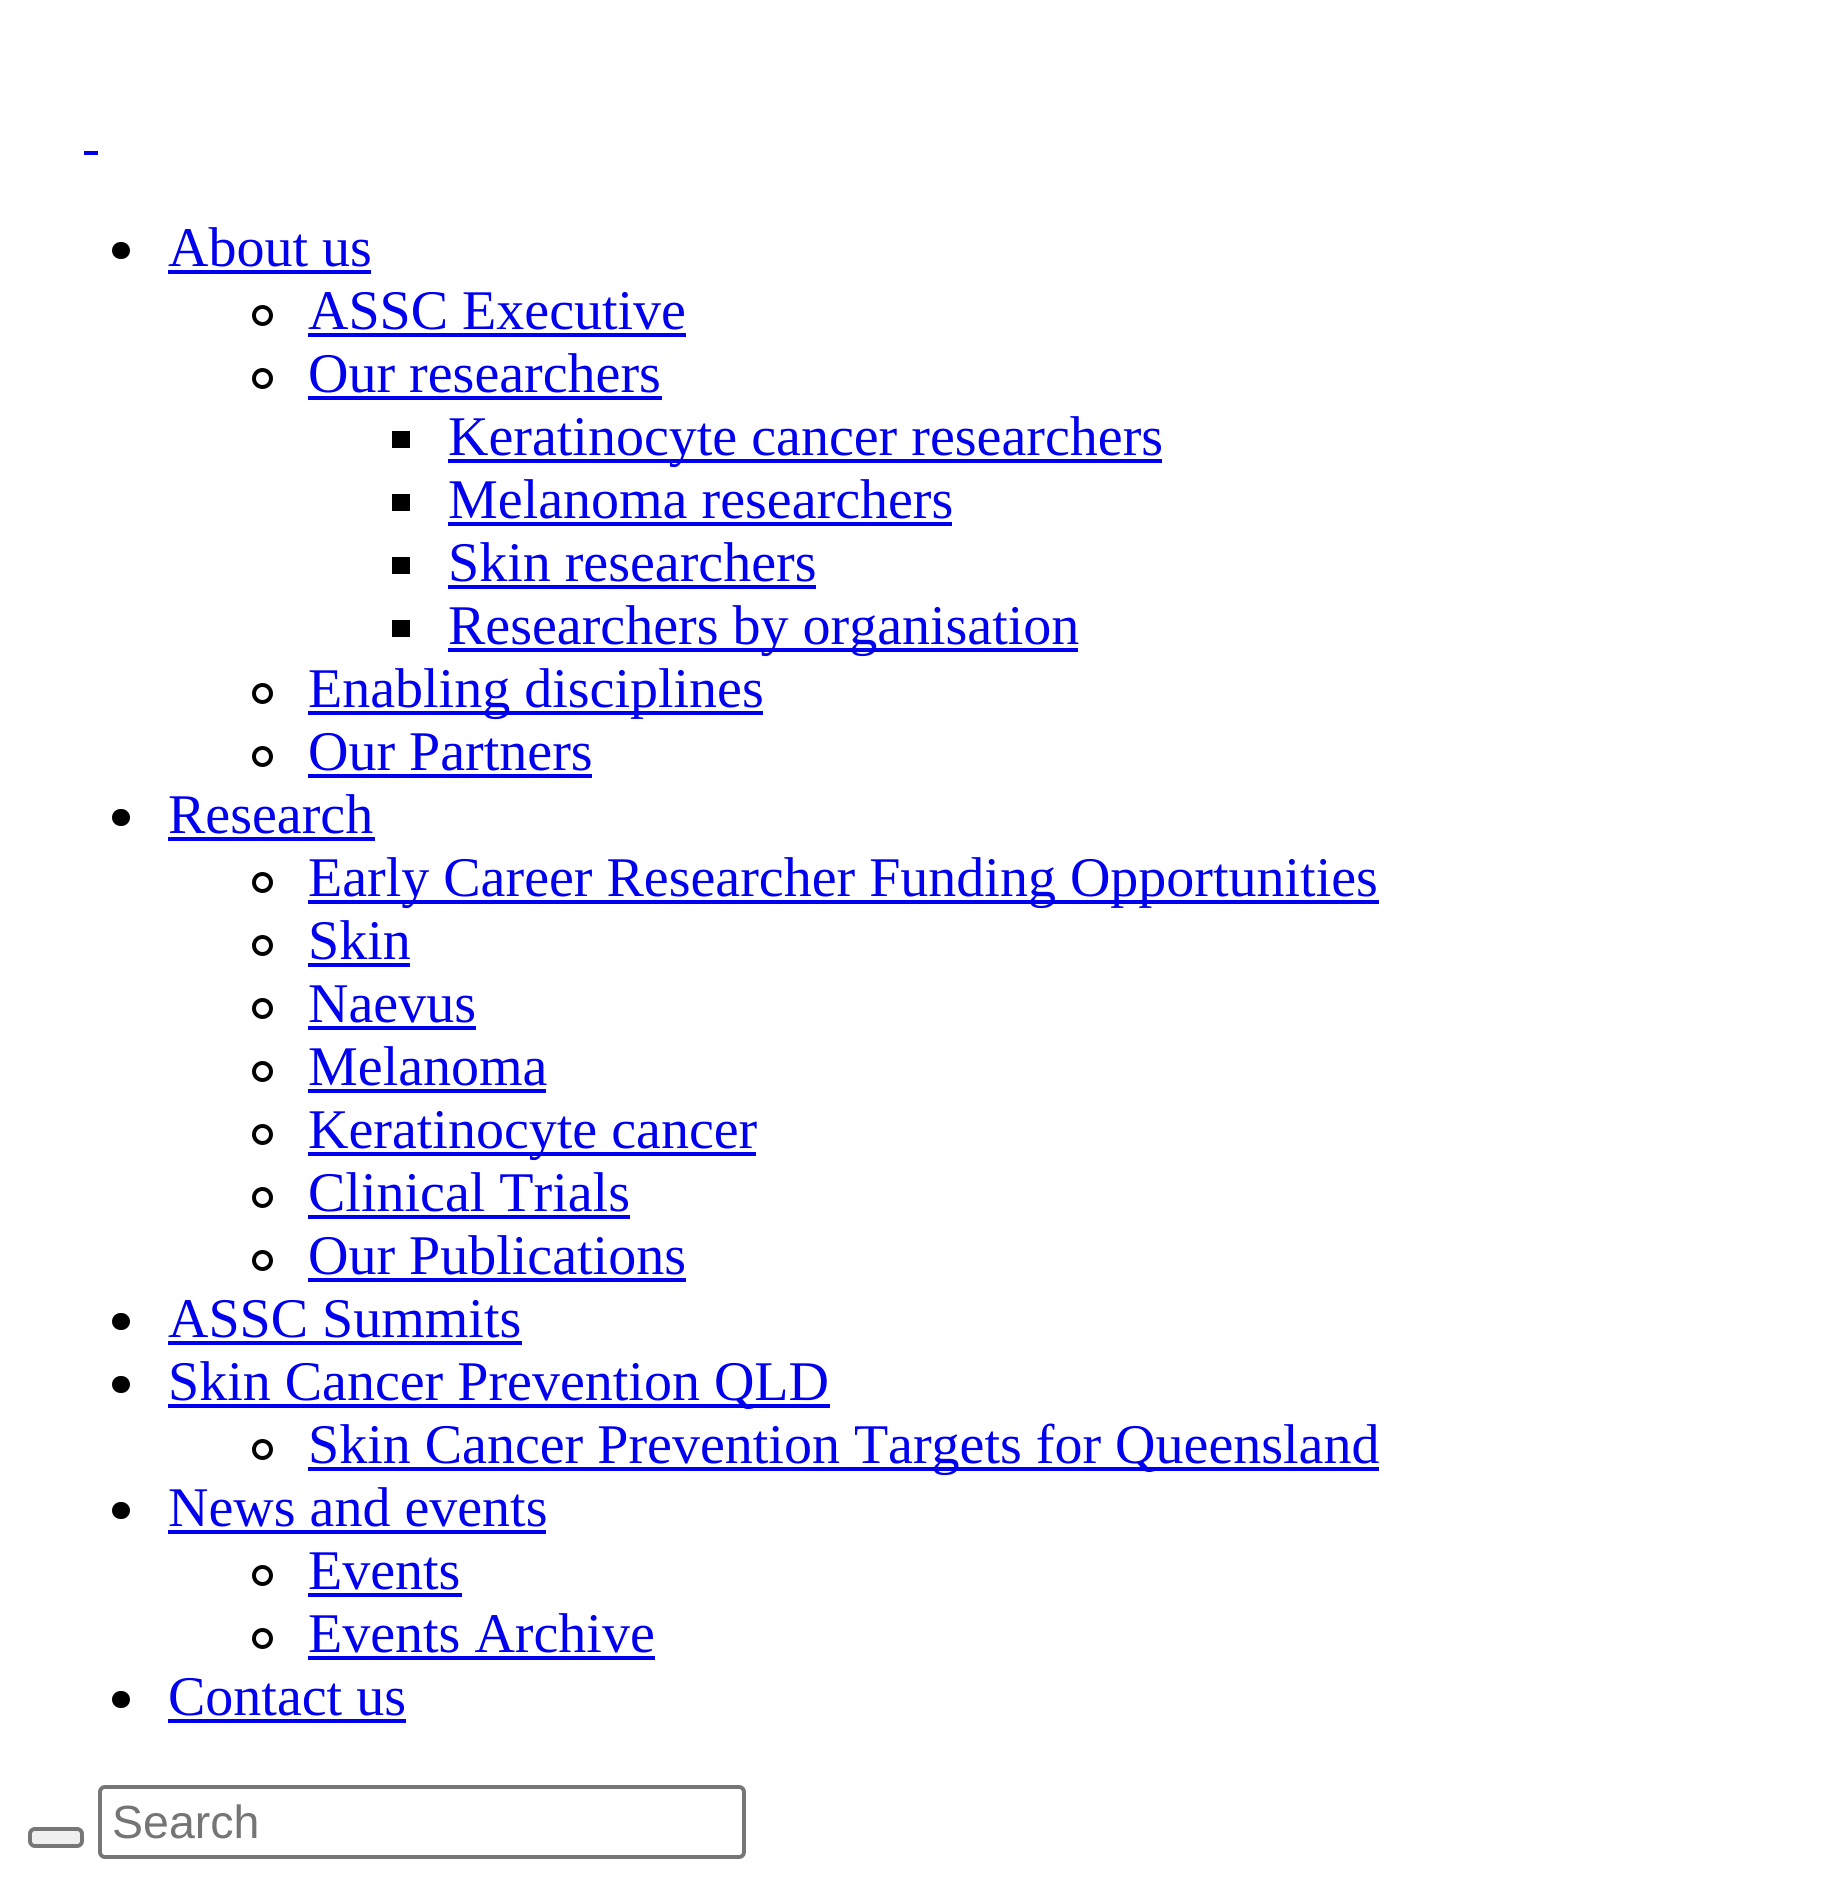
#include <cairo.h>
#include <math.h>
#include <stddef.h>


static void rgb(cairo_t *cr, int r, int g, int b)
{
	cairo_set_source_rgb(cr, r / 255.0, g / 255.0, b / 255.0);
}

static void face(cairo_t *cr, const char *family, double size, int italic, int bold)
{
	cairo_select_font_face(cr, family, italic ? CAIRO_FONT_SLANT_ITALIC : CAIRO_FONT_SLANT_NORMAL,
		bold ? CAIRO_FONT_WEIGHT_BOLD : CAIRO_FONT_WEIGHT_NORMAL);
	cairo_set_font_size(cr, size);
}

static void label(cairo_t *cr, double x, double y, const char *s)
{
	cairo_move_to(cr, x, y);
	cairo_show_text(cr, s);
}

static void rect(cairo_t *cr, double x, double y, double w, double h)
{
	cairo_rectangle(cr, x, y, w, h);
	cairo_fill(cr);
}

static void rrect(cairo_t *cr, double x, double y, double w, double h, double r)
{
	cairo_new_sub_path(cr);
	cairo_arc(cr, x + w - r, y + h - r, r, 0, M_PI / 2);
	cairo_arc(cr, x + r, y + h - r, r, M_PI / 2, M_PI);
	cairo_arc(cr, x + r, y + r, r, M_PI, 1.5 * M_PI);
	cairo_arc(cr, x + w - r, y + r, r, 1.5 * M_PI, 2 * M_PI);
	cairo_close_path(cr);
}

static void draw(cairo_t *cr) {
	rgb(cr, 255, 255, 255);
	cairo_paint(cr);
	rgb(cr, 0, 0, 238);
	rect(cr, 84, 151, 14, 4);
	rgb(cr, 0, 0, 0);
	rrect(cr, 112, 242, 18, 17, 8.5);
	cairo_fill(cr);
	face(cr, "Liberation Serif", 56, 0, 0);
	rgb(cr, 0, 0, 238);
	label(cr, 168, 266, "About us");
	rect(cr, 168, 270, 203, 4);
	cairo_new_path(cr);
	cairo_arc(cr, 262.5, 315.5, 8.5, 0, 2 * M_PI);
	rgb(cr, 0, 0, 0);
	cairo_set_line_width(cr, 4);
	cairo_stroke(cr);
	rgb(cr, 0, 0, 238);
	label(cr, 308, 329, "ASSC Executive");
	rect(cr, 308, 333, 378, 4);
	cairo_new_path(cr);
	cairo_arc(cr, 262.5, 378.5, 8.5, 0, 2 * M_PI);
	rgb(cr, 0, 0, 0);
	cairo_stroke(cr);
	rgb(cr, 0, 0, 238);
	label(cr, 308, 392, "Our researchers");
	rect(cr, 308, 396, 354, 4);
	rgb(cr, 0, 0, 0);
	rect(cr, 392, 431, 18, 17);
	rgb(cr, 0, 0, 238);
	rect(cr, 448, 459, 714, 4);
	label(cr, 448, 455, "Keratinocyte cancer researchers");
	rgb(cr, 0, 0, 0);
	rect(cr, 392, 494, 18, 17);
	rgb(cr, 0, 0, 238);
	label(cr, 448, 518, "Melanoma researchers");
	rect(cr, 448, 522, 504, 4);
	rgb(cr, 0, 0, 0);
	rect(cr, 392, 557, 18, 17);
	rgb(cr, 0, 0, 238);
	label(cr, 448, 581, "Skin researchers");
	rect(cr, 448, 585, 368, 4);
	rgb(cr, 0, 0, 0);
	rect(cr, 392, 620, 18, 17);
	rgb(cr, 0, 0, 238);
	rect(cr, 448, 648, 630, 4);
	label(cr, 448, 644, "Researchers by organisation");
	cairo_new_path(cr);
	cairo_arc(cr, 262.5, 693.5, 8.5, 0, 2 * M_PI);
	rgb(cr, 0, 0, 0);
	cairo_stroke(cr);
	rgb(cr, 0, 0, 238);
	rect(cr, 308, 711, 455, 4);
	label(cr, 308, 707, "Enabling disciplines");
	cairo_new_path(cr);
	cairo_arc(cr, 262.5, 756.5, 8.5, 0, 2 * M_PI);
	rgb(cr, 0, 0, 0);
	cairo_stroke(cr);
	rgb(cr, 0, 0, 238);
	label(cr, 308, 770, "Our Partners");
	rect(cr, 308, 774, 284, 4);
	rgb(cr, 0, 0, 0);
	rrect(cr, 112, 809, 18, 17, 8.5);
	cairo_fill(cr);
	rgb(cr, 0, 0, 238);
	label(cr, 168, 833, "Research");
	rect(cr, 168, 837, 207, 4);
	cairo_new_path(cr);
	cairo_arc(cr, 262.5, 882.5, 8.5, 0, 2 * M_PI);
	rgb(cr, 0, 0, 0);
	cairo_stroke(cr);
	rgb(cr, 0, 0, 238);
	rect(cr, 308, 900, 1071, 4);
	label(cr, 308, 896, "Early Career Researcher Funding Opportunities");
	cairo_new_path(cr);
	cairo_arc(cr, 262.5, 945.5, 8.5, 0, 2 * M_PI);
	rgb(cr, 0, 0, 0);
	cairo_stroke(cr);
	rgb(cr, 0, 0, 238);
	label(cr, 308, 959, "Skin");
	rect(cr, 308, 963, 102, 4);
	cairo_new_path(cr);
	cairo_arc(cr, 262.5, 1008.5, 8.5, 0, 2 * M_PI);
	rgb(cr, 0, 0, 0);
	cairo_stroke(cr);
	rgb(cr, 0, 0, 238);
	label(cr, 308, 1022, "Naevus");
	rect(cr, 308, 1026, 168, 4);
	cairo_new_path(cr);
	cairo_arc(cr, 262.5, 1071.5, 8.5, 0, 2 * M_PI);
	rgb(cr, 0, 0, 0);
	cairo_stroke(cr);
	rgb(cr, 0, 0, 238);
	label(cr, 308, 1085, "Melanoma");
	rect(cr, 308, 1089, 238, 4);
	cairo_new_path(cr);
	cairo_arc(cr, 262.5, 1134.5, 8.5, 0, 2 * M_PI);
	rgb(cr, 0, 0, 0);
	cairo_stroke(cr);
	rgb(cr, 0, 0, 238);
	rect(cr, 308, 1152, 448, 4);
	label(cr, 308, 1148, "Keratinocyte cancer");
	cairo_new_path(cr);
	cairo_arc(cr, 262.5, 1197.5, 8.5, 0, 2 * M_PI);
	rgb(cr, 0, 0, 0);
	cairo_stroke(cr);
	rgb(cr, 0, 0, 238);
	label(cr, 308, 1211, "Clinical Trials");
	rect(cr, 308, 1215, 322, 4);
	cairo_new_path(cr);
	cairo_arc(cr, 262.5, 1260.5, 8.5, 0, 2 * M_PI);
	rgb(cr, 0, 0, 0);
	cairo_stroke(cr);
	rgb(cr, 0, 0, 238);
	label(cr, 308, 1274, "Our Publications");
	rect(cr, 308, 1278, 378, 4);
	rgb(cr, 0, 0, 0);
	rrect(cr, 112, 1313, 18, 17, 8.5);
	cairo_fill(cr);
	rgb(cr, 0, 0, 238);
	label(cr, 168, 1337, "ASSC Summits");
	rect(cr, 168, 1341, 354, 4);
	rgb(cr, 0, 0, 0);
	rrect(cr, 112, 1376, 18, 17, 8.5);
	cairo_fill(cr);
	rgb(cr, 0, 0, 238);
	rect(cr, 168, 1404, 662, 4);
	label(cr, 168, 1400, "Skin Cancer Prevention QLD");
	cairo_new_path(cr);
	cairo_arc(cr, 262.5, 1449.5, 8.5, 0, 2 * M_PI);
	rgb(cr, 0, 0, 0);
	cairo_stroke(cr);
	rgb(cr, 0, 0, 238);
	rect(cr, 308, 1467, 1071, 4);
	label(cr, 308, 1463, "Skin Cancer Prevention Targets for Queensland");
	rgb(cr, 0, 0, 0);
	rrect(cr, 112, 1502, 18, 17, 8.5);
	cairo_fill(cr);
	rgb(cr, 0, 0, 238);
	label(cr, 168, 1526, "News and events");
	rect(cr, 168, 1530, 378, 4);
	cairo_new_path(cr);
	cairo_arc(cr, 262.5, 1575.5, 8.5, 0, 2 * M_PI);
	rgb(cr, 0, 0, 0);
	cairo_stroke(cr);
	rgb(cr, 0, 0, 238);
	label(cr, 308, 1589, "Events");
	rect(cr, 308, 1593, 154, 4);
	cairo_new_path(cr);
	cairo_arc(cr, 262.5, 1638.5, 8.5, 0, 2 * M_PI);
	rgb(cr, 0, 0, 0);
	cairo_stroke(cr);
	rgb(cr, 0, 0, 238);
	label(cr, 308, 1652, "Events Archive");
	rect(cr, 308, 1656, 347, 4);
	rgb(cr, 0, 0, 0);
	rrect(cr, 112, 1691, 18, 17, 8.5);
	cairo_fill(cr);
	rgb(cr, 0, 0, 238);
	label(cr, 168, 1715, "Contact us");
	rect(cr, 168, 1719, 238, 4);
	rgb(cr, 239, 239, 239);
	rrect(cr, 30, 1829, 52, 17, 5);
	cairo_fill_preserve(cr);
	rgb(cr, 118, 118, 118);
	cairo_stroke(cr);
	rrect(cr, 100, 1787, 644, 70, 5);
	cairo_stroke(cr);
	face(cr, "Liberation Sans", 46.5, 0, 0);
	rgb(cr, 117, 117, 117);
	label(cr, 112, 1838, "Search");
}

int main(void) {
	cairo_surface_t *surface = cairo_image_surface_create(CAIRO_FORMAT_RGB24, 1826, 1889);
	cairo_t *cr = cairo_create(surface);
	cairo_font_options_t *options = cairo_font_options_create();
	cairo_font_options_set_hint_metrics(options, CAIRO_HINT_METRICS_OFF);
	cairo_font_options_set_hint_style(options, CAIRO_HINT_STYLE_NONE);
	cairo_set_font_options(cr, options);
	cairo_set_miter_limit(cr, 4);
	draw(cr);
	cairo_surface_write_to_png(surface, "render.png");
	cairo_font_options_destroy(options);
	cairo_destroy(cr);
	cairo_surface_destroy(surface);
	return 0;
}
